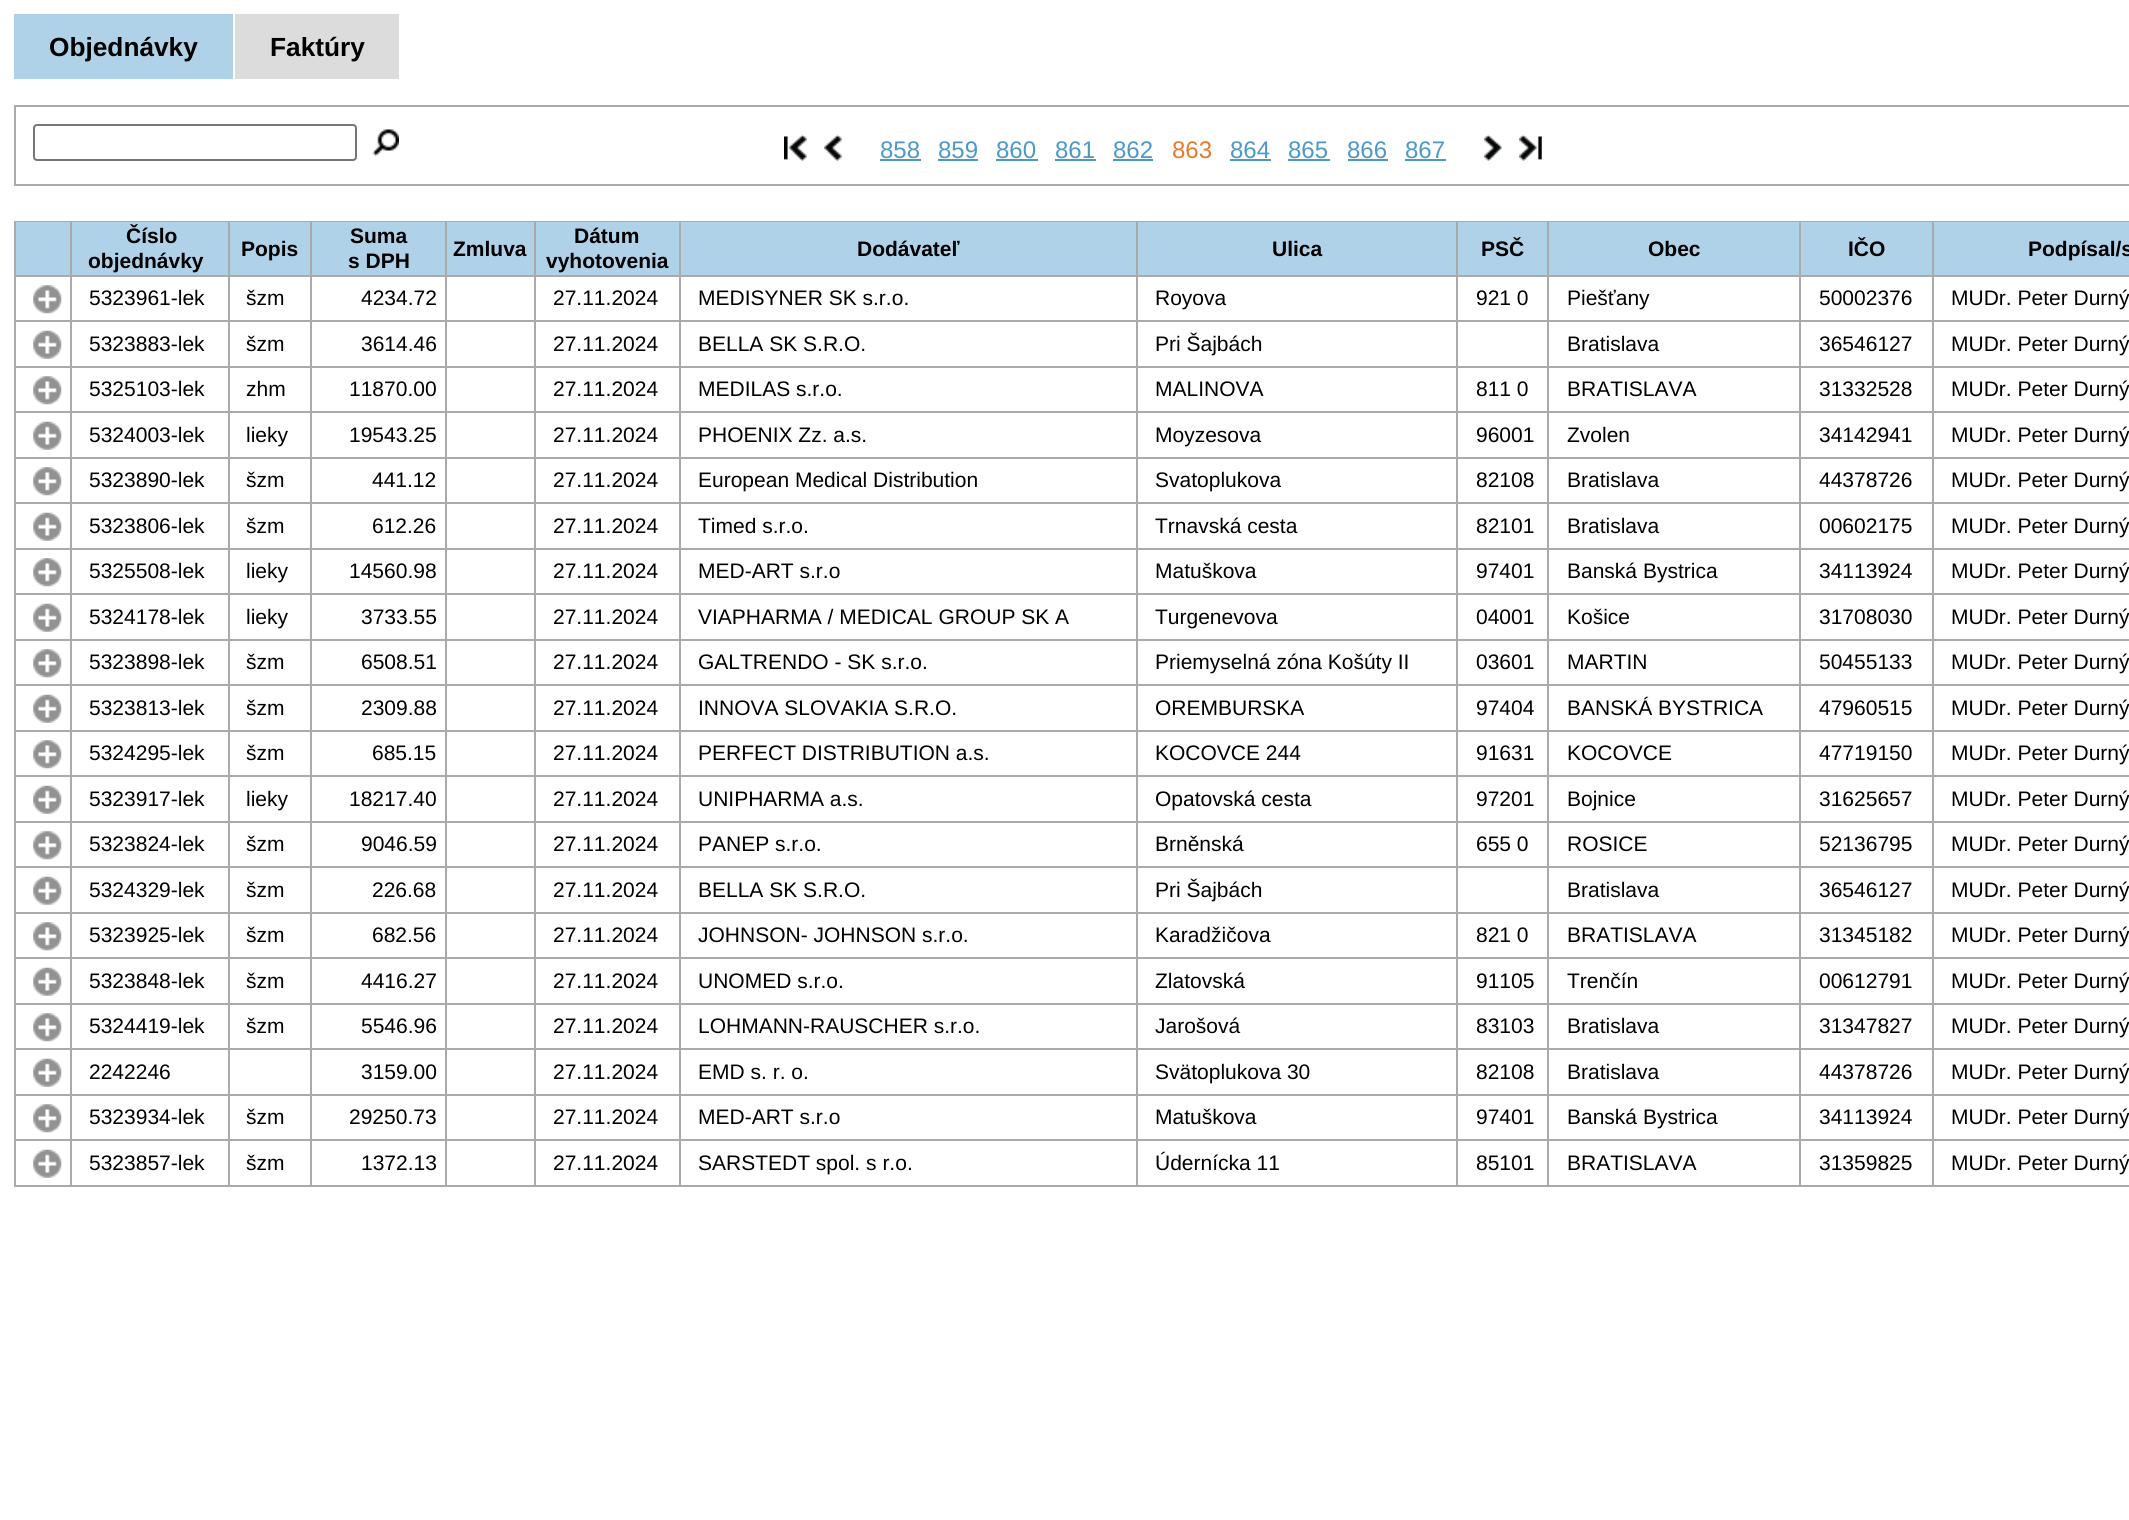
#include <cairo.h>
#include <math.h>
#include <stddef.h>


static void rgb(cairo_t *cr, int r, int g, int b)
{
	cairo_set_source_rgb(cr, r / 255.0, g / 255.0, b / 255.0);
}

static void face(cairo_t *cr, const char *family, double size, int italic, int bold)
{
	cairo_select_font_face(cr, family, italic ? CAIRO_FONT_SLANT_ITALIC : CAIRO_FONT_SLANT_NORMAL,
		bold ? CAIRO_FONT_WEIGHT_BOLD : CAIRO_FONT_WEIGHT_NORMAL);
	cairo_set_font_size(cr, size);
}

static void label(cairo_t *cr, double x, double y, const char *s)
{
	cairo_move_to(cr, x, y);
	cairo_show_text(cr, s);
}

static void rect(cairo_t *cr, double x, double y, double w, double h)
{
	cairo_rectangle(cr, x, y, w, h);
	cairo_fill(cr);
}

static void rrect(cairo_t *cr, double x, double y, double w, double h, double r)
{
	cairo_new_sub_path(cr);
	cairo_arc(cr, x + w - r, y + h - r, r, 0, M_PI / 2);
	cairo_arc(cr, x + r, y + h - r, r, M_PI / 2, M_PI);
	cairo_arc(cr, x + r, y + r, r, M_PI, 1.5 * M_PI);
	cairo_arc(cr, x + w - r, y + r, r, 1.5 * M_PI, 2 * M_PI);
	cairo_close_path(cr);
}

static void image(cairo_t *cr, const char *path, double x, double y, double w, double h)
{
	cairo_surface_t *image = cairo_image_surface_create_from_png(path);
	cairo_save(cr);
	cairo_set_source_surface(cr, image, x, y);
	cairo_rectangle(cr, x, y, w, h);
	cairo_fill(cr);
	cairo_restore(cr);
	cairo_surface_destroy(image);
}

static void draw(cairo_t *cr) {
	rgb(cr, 255, 255, 255);
	cairo_paint(cr);
	rgb(cr, 176, 210, 233);
	rect(cr, 14, 14, 219, 65);
	face(cr, "Liberation Sans", 26.25, 0, 1);
	rgb(cr, 0, 0, 0);
	label(cr, 49, 56, "Objednávky");
	rgb(cr, 220, 220, 220);
	rect(cr, 235, 14, 164, 65);
	rgb(cr, 0, 0, 0);
	label(cr, 270, 56, "Faktúry");
	cairo_rectangle(cr, 15, 106, 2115, 79);
	rgb(cr, 170, 170, 170);
	cairo_stroke(cr);
	rrect(cr, 34, 125, 322, 35, 3);
	rgb(cr, 118, 118, 118);
	cairo_stroke(cr);
	image(cr, "image0.png", 372, 129, 27, 28);
	image(cr, "image1.png", 784, 134, 23, 27);
	image(cr, "image2.png", 824, 134, 18, 27);
	face(cr, "Liberation Sans", 24, 0, 0);
	rgb(cr, 76, 153, 199);
	label(cr, 880, 158, "858");
	rect(cr, 880, 159, 41, 2);
	label(cr, 938, 158, "859");
	rect(cr, 938, 159, 40, 2);
	label(cr, 996, 158, "860");
	rect(cr, 996, 159, 42, 2);
	label(cr, 1055, 158, "861");
	rect(cr, 1055, 159, 41, 2);
	label(cr, 1113, 158, "862");
	rect(cr, 1113, 159, 40, 2);
	rgb(cr, 232, 122, 41);
	label(cr, 1172, 158, "863");
	rgb(cr, 76, 153, 199);
	label(cr, 1230, 158, "864");
	rect(cr, 1230, 159, 41, 2);
	label(cr, 1288, 158, "865");
	rect(cr, 1288, 159, 42, 2);
	label(cr, 1347, 158, "866");
	rect(cr, 1348, 159, 40, 2);
	label(cr, 1405, 158, "867");
	rect(cr, 1405, 159, 41, 2);
	image(cr, "image3.png", 1484, 134, 18, 27);
	image(cr, "image4.png", 1519, 134, 23, 27);
	rgb(cr, 170, 170, 170);
	rect(cr, 14, 221, 2115, 1);
	rgb(cr, 176, 210, 233);
	rect(cr, 16, 222, 54, 53);
	rgb(cr, 170, 170, 170);
	rect(cr, 14, 275, 2115, 2);
	rect(cr, 14, 222, 2, 55);
	rgb(cr, 176, 210, 233);
	rect(cr, 72, 222, 156, 53);
	rgb(cr, 170, 170, 170);
	rect(cr, 70, 222, 2, 55);
	face(cr, "Liberation Sans", 21, 0, 1);
	rgb(cr, 0, 0, 0);
	label(cr, 126, 243, "Číslo");
	label(cr, 88, 268, "objednávky");
	rgb(cr, 176, 210, 233);
	rect(cr, 230, 222, 80, 53);
	rgb(cr, 170, 170, 170);
	rect(cr, 228, 222, 2, 55);
	rgb(cr, 0, 0, 0);
	label(cr, 241, 256, "Popis");
	rgb(cr, 176, 210, 233);
	rect(cr, 312, 222, 133, 53);
	rgb(cr, 170, 170, 170);
	rect(cr, 310, 222, 2, 55);
	rgb(cr, 0, 0, 0);
	label(cr, 350, 243, "Suma");
	label(cr, 348, 268, "s DPH");
	rgb(cr, 176, 210, 233);
	rect(cr, 447, 222, 87, 53);
	rgb(cr, 170, 170, 170);
	rect(cr, 445, 222, 2, 55);
	rgb(cr, 0, 0, 0);
	label(cr, 453, 256, "Zmluva");
	rgb(cr, 176, 210, 233);
	rect(cr, 536, 222, 143, 53);
	rgb(cr, 170, 170, 170);
	rect(cr, 534, 222, 2, 55);
	rgb(cr, 0, 0, 0);
	label(cr, 574, 243, "Dátum");
	label(cr, 546, 268, "vyhotovenia");
	rgb(cr, 176, 210, 233);
	rect(cr, 681, 222, 455, 53);
	rgb(cr, 170, 170, 170);
	rect(cr, 679, 222, 2, 55);
	rgb(cr, 0, 0, 0);
	label(cr, 857, 256, "Dodávateľ");
	rgb(cr, 176, 210, 233);
	rect(cr, 1138, 222, 318, 53);
	rgb(cr, 170, 170, 170);
	rect(cr, 1136, 222, 2, 55);
	rgb(cr, 0, 0, 0);
	label(cr, 1272, 256, "Ulica");
	rgb(cr, 176, 210, 233);
	rect(cr, 1458, 222, 89, 53);
	rgb(cr, 170, 170, 170);
	rect(cr, 1456, 222, 2, 55);
	rgb(cr, 0, 0, 0);
	label(cr, 1481, 256, "PSČ");
	rgb(cr, 176, 210, 233);
	rect(cr, 1549, 222, 250, 53);
	rgb(cr, 170, 170, 170);
	rect(cr, 1547, 222, 2, 55);
	rgb(cr, 0, 0, 0);
	label(cr, 1648, 256, "Obec");
	rgb(cr, 176, 210, 233);
	rect(cr, 1801, 222, 131, 53);
	rgb(cr, 170, 170, 170);
	rect(cr, 1799, 222, 2, 55);
	rgb(cr, 0, 0, 0);
	label(cr, 1848, 256, "IČO");
	rgb(cr, 176, 210, 233);
	rect(cr, 1934, 222, 195, 53);
	rgb(cr, 170, 170, 170);
	rect(cr, 1932, 222, 2, 55);
	rgb(cr, 0, 0, 0);
	label(cr, 2028, 256, "Podpísal/s");
	rgb(cr, 170, 170, 170);
	rect(cr, 14, 320, 2115, 2);
	rect(cr, 14, 277, 2, 45);
	image(cr, "image5.png", 33, 285, 29, 29);
	rect(cr, 70, 277, 2, 45);
	face(cr, "Liberation Sans", 21, 0, 0);
	rgb(cr, 0, 0, 0);
	label(cr, 89, 305, "5323961-lek");
	rgb(cr, 170, 170, 170);
	rect(cr, 228, 277, 2, 45);
	rgb(cr, 0, 0, 0);
	label(cr, 246, 305, "šzm");
	rgb(cr, 170, 170, 170);
	rect(cr, 310, 277, 2, 45);
	rgb(cr, 0, 0, 0);
	label(cr, 361, 305, "4234.72");
	rgb(cr, 170, 170, 170);
	rect(cr, 445, 277, 2, 45);
	rect(cr, 534, 277, 2, 45);
	rgb(cr, 0, 0, 0);
	label(cr, 553, 305, "27.11.2024");
	rgb(cr, 170, 170, 170);
	rect(cr, 679, 277, 2, 45);
	rgb(cr, 0, 0, 0);
	label(cr, 698, 305, "MEDISYNER SK s.r.o.");
	rgb(cr, 170, 170, 170);
	rect(cr, 1136, 277, 2, 45);
	rgb(cr, 0, 0, 0);
	label(cr, 1155, 305, "Royova");
	rgb(cr, 170, 170, 170);
	rect(cr, 1456, 277, 2, 45);
	rgb(cr, 0, 0, 0);
	label(cr, 1476, 305, "921 0");
	rgb(cr, 170, 170, 170);
	rect(cr, 1547, 277, 2, 45);
	rgb(cr, 0, 0, 0);
	label(cr, 1567, 305, "Piešťany");
	rgb(cr, 170, 170, 170);
	rect(cr, 1799, 277, 2, 45);
	rgb(cr, 0, 0, 0);
	label(cr, 1819, 305, "50002376");
	rgb(cr, 170, 170, 170);
	rect(cr, 1932, 277, 2, 45);
	rgb(cr, 0, 0, 0);
	label(cr, 1951, 305, "MUDr. Peter Durný");
	rgb(cr, 170, 170, 170);
	rect(cr, 14, 366, 2115, 2);
	rect(cr, 14, 322, 2, 46);
	image(cr, "image6.png", 33, 330, 29, 29);
	rect(cr, 70, 322, 2, 46);
	rgb(cr, 0, 0, 0);
	label(cr, 89, 351, "5323883-lek");
	rgb(cr, 170, 170, 170);
	rect(cr, 228, 322, 2, 46);
	rgb(cr, 0, 0, 0);
	label(cr, 246, 351, "šzm");
	rgb(cr, 170, 170, 170);
	rect(cr, 310, 322, 2, 46);
	rgb(cr, 0, 0, 0);
	label(cr, 361, 351, "3614.46");
	rgb(cr, 170, 170, 170);
	rect(cr, 445, 322, 2, 46);
	rect(cr, 534, 322, 2, 46);
	rgb(cr, 0, 0, 0);
	label(cr, 553, 351, "27.11.2024");
	rgb(cr, 170, 170, 170);
	rect(cr, 679, 322, 2, 46);
	rgb(cr, 0, 0, 0);
	label(cr, 698, 351, "BELLA SK S.R.O.");
	rgb(cr, 170, 170, 170);
	rect(cr, 1136, 322, 2, 46);
	rgb(cr, 0, 0, 0);
	label(cr, 1155, 351, "Pri Šajbách");
	rgb(cr, 170, 170, 170);
	rect(cr, 1456, 322, 2, 46);
	rect(cr, 1547, 322, 2, 46);
	rgb(cr, 0, 0, 0);
	label(cr, 1567, 351, "Bratislava");
	rgb(cr, 170, 170, 170);
	rect(cr, 1799, 322, 2, 46);
	rgb(cr, 0, 0, 0);
	label(cr, 1819, 351, "36546127");
	rgb(cr, 170, 170, 170);
	rect(cr, 1932, 322, 2, 46);
	rgb(cr, 0, 0, 0);
	label(cr, 1951, 351, "MUDr. Peter Durný");
	rgb(cr, 170, 170, 170);
	rect(cr, 14, 411, 2115, 2);
	rect(cr, 14, 368, 2, 45);
	image(cr, "image5.png", 33, 376, 29, 29);
	rect(cr, 70, 368, 2, 45);
	rgb(cr, 0, 0, 0);
	label(cr, 89, 396, "5325103-lek");
	rgb(cr, 170, 170, 170);
	rect(cr, 228, 368, 2, 45);
	rgb(cr, 0, 0, 0);
	label(cr, 246, 396, "zhm");
	rgb(cr, 170, 170, 170);
	rect(cr, 310, 368, 2, 45);
	rgb(cr, 0, 0, 0);
	label(cr, 349, 396, "11870.00");
	rgb(cr, 170, 170, 170);
	rect(cr, 445, 368, 2, 45);
	rect(cr, 534, 368, 2, 45);
	rgb(cr, 0, 0, 0);
	label(cr, 553, 396, "27.11.2024");
	rgb(cr, 170, 170, 170);
	rect(cr, 679, 368, 2, 45);
	rgb(cr, 0, 0, 0);
	label(cr, 698, 396, "MEDILAS s.r.o.");
	rgb(cr, 170, 170, 170);
	rect(cr, 1136, 368, 2, 45);
	rgb(cr, 0, 0, 0);
	label(cr, 1155, 396, "MALINOVA");
	rgb(cr, 170, 170, 170);
	rect(cr, 1456, 368, 2, 45);
	rgb(cr, 0, 0, 0);
	label(cr, 1476, 396, "811 0");
	rgb(cr, 170, 170, 170);
	rect(cr, 1547, 368, 2, 45);
	rgb(cr, 0, 0, 0);
	label(cr, 1567, 396, "BRATISLAVA");
	rgb(cr, 170, 170, 170);
	rect(cr, 1799, 368, 2, 45);
	rgb(cr, 0, 0, 0);
	label(cr, 1819, 396, "31332528");
	rgb(cr, 170, 170, 170);
	rect(cr, 1932, 368, 2, 45);
	rgb(cr, 0, 0, 0);
	label(cr, 1951, 396, "MUDr. Peter Durný");
	rgb(cr, 170, 170, 170);
	rect(cr, 14, 457, 2115, 2);
	rect(cr, 14, 413, 2, 46);
	image(cr, "image6.png", 33, 421, 29, 29);
	rect(cr, 70, 413, 2, 46);
	rgb(cr, 0, 0, 0);
	label(cr, 89, 442, "5324003-lek");
	rgb(cr, 170, 170, 170);
	rect(cr, 228, 413, 2, 46);
	rgb(cr, 0, 0, 0);
	label(cr, 246, 442, "lieky");
	rgb(cr, 170, 170, 170);
	rect(cr, 310, 413, 2, 46);
	rgb(cr, 0, 0, 0);
	label(cr, 349, 442, "19543.25");
	rgb(cr, 170, 170, 170);
	rect(cr, 445, 413, 2, 46);
	rect(cr, 534, 413, 2, 46);
	rgb(cr, 0, 0, 0);
	label(cr, 553, 442, "27.11.2024");
	rgb(cr, 170, 170, 170);
	rect(cr, 679, 413, 2, 46);
	rgb(cr, 0, 0, 0);
	label(cr, 698, 442, "PHOENIX Zz. a.s.");
	rgb(cr, 170, 170, 170);
	rect(cr, 1136, 413, 2, 46);
	rgb(cr, 0, 0, 0);
	label(cr, 1155, 442, "Moyzesova");
	rgb(cr, 170, 170, 170);
	rect(cr, 1456, 413, 2, 46);
	rgb(cr, 0, 0, 0);
	label(cr, 1476, 442, "96001");
	rgb(cr, 170, 170, 170);
	rect(cr, 1547, 413, 2, 46);
	rgb(cr, 0, 0, 0);
	label(cr, 1567, 442, "Zvolen");
	rgb(cr, 170, 170, 170);
	rect(cr, 1799, 413, 2, 46);
	rgb(cr, 0, 0, 0);
	label(cr, 1819, 442, "34142941");
	rgb(cr, 170, 170, 170);
	rect(cr, 1932, 413, 2, 46);
	rgb(cr, 0, 0, 0);
	label(cr, 1951, 442, "MUDr. Peter Durný");
	rgb(cr, 170, 170, 170);
	rect(cr, 14, 502, 2115, 2);
	rect(cr, 14, 459, 2, 45);
	image(cr, "image5.png", 33, 467, 29, 29);
	rect(cr, 70, 459, 2, 45);
	rgb(cr, 0, 0, 0);
	label(cr, 89, 487, "5323890-lek");
	rgb(cr, 170, 170, 170);
	rect(cr, 228, 459, 2, 45);
	rgb(cr, 0, 0, 0);
	label(cr, 246, 487, "šzm");
	rgb(cr, 170, 170, 170);
	rect(cr, 310, 459, 2, 45);
	rgb(cr, 0, 0, 0);
	label(cr, 372, 487, "441.12");
	rgb(cr, 170, 170, 170);
	rect(cr, 445, 459, 2, 45);
	rect(cr, 534, 459, 2, 45);
	rgb(cr, 0, 0, 0);
	label(cr, 553, 487, "27.11.2024");
	rgb(cr, 170, 170, 170);
	rect(cr, 679, 459, 2, 45);
	rgb(cr, 0, 0, 0);
	label(cr, 698, 487, "European Medical Distribution");
	rgb(cr, 170, 170, 170);
	rect(cr, 1136, 459, 2, 45);
	rgb(cr, 0, 0, 0);
	label(cr, 1155, 487, "Svatoplukova");
	rgb(cr, 170, 170, 170);
	rect(cr, 1456, 459, 2, 45);
	rgb(cr, 0, 0, 0);
	label(cr, 1476, 487, "82108");
	rgb(cr, 170, 170, 170);
	rect(cr, 1547, 459, 2, 45);
	rgb(cr, 0, 0, 0);
	label(cr, 1567, 487, "Bratislava");
	rgb(cr, 170, 170, 170);
	rect(cr, 1799, 459, 2, 45);
	rgb(cr, 0, 0, 0);
	label(cr, 1819, 487, "44378726");
	rgb(cr, 170, 170, 170);
	rect(cr, 1932, 459, 2, 45);
	rgb(cr, 0, 0, 0);
	label(cr, 1951, 487, "MUDr. Peter Durný");
	rgb(cr, 170, 170, 170);
	rect(cr, 14, 548, 2115, 2);
	rect(cr, 14, 504, 2, 46);
	image(cr, "image6.png", 33, 512, 29, 29);
	rect(cr, 70, 504, 2, 46);
	rgb(cr, 0, 0, 0);
	label(cr, 89, 533, "5323806-lek");
	rgb(cr, 170, 170, 170);
	rect(cr, 228, 504, 2, 46);
	rgb(cr, 0, 0, 0);
	label(cr, 246, 533, "šzm");
	rgb(cr, 170, 170, 170);
	rect(cr, 310, 504, 2, 46);
	rgb(cr, 0, 0, 0);
	label(cr, 372, 533, "612.26");
	rgb(cr, 170, 170, 170);
	rect(cr, 445, 504, 2, 46);
	rect(cr, 534, 504, 2, 46);
	rgb(cr, 0, 0, 0);
	label(cr, 553, 533, "27.11.2024");
	rgb(cr, 170, 170, 170);
	rect(cr, 679, 504, 2, 46);
	rgb(cr, 0, 0, 0);
	label(cr, 698, 533, "Timed s.r.o.");
	rgb(cr, 170, 170, 170);
	rect(cr, 1136, 504, 2, 46);
	rgb(cr, 0, 0, 0);
	label(cr, 1155, 533, "Trnavská cesta");
	rgb(cr, 170, 170, 170);
	rect(cr, 1456, 504, 2, 46);
	rgb(cr, 0, 0, 0);
	label(cr, 1476, 533, "82101");
	rgb(cr, 170, 170, 170);
	rect(cr, 1547, 504, 2, 46);
	rgb(cr, 0, 0, 0);
	label(cr, 1567, 533, "Bratislava");
	rgb(cr, 170, 170, 170);
	rect(cr, 1799, 504, 2, 46);
	rgb(cr, 0, 0, 0);
	label(cr, 1819, 533, "00602175");
	rgb(cr, 170, 170, 170);
	rect(cr, 1932, 504, 2, 46);
	rgb(cr, 0, 0, 0);
	label(cr, 1951, 533, "MUDr. Peter Durný");
	rgb(cr, 170, 170, 170);
	rect(cr, 14, 593, 2115, 2);
	rect(cr, 14, 550, 2, 45);
	image(cr, "image5.png", 33, 558, 29, 29);
	rect(cr, 70, 550, 2, 45);
	rgb(cr, 0, 0, 0);
	label(cr, 89, 578, "5325508-lek");
	rgb(cr, 170, 170, 170);
	rect(cr, 228, 550, 2, 45);
	rgb(cr, 0, 0, 0);
	label(cr, 246, 578, "lieky");
	rgb(cr, 170, 170, 170);
	rect(cr, 310, 550, 2, 45);
	rgb(cr, 0, 0, 0);
	label(cr, 349, 578, "14560.98");
	rgb(cr, 170, 170, 170);
	rect(cr, 445, 550, 2, 45);
	rect(cr, 534, 550, 2, 45);
	rgb(cr, 0, 0, 0);
	label(cr, 553, 578, "27.11.2024");
	rgb(cr, 170, 170, 170);
	rect(cr, 679, 550, 2, 45);
	rgb(cr, 0, 0, 0);
	label(cr, 698, 578, "MED-ART s.r.o");
	rgb(cr, 170, 170, 170);
	rect(cr, 1136, 550, 2, 45);
	rgb(cr, 0, 0, 0);
	label(cr, 1155, 578, "Matuškova");
	rgb(cr, 170, 170, 170);
	rect(cr, 1456, 550, 2, 45);
	rgb(cr, 0, 0, 0);
	label(cr, 1476, 578, "97401");
	rgb(cr, 170, 170, 170);
	rect(cr, 1547, 550, 2, 45);
	rgb(cr, 0, 0, 0);
	label(cr, 1567, 578, "Banská Bystrica");
	rgb(cr, 170, 170, 170);
	rect(cr, 1799, 550, 2, 45);
	rgb(cr, 0, 0, 0);
	label(cr, 1819, 578, "34113924");
	rgb(cr, 170, 170, 170);
	rect(cr, 1932, 550, 2, 45);
	rgb(cr, 0, 0, 0);
	label(cr, 1951, 578, "MUDr. Peter Durný");
	rgb(cr, 170, 170, 170);
	rect(cr, 14, 639, 2115, 2);
	rect(cr, 14, 595, 2, 46);
	image(cr, "image6.png", 33, 603, 29, 29);
	rect(cr, 70, 595, 2, 46);
	rgb(cr, 0, 0, 0);
	label(cr, 89, 624, "5324178-lek");
	rgb(cr, 170, 170, 170);
	rect(cr, 228, 595, 2, 46);
	rgb(cr, 0, 0, 0);
	label(cr, 246, 624, "lieky");
	rgb(cr, 170, 170, 170);
	rect(cr, 310, 595, 2, 46);
	rgb(cr, 0, 0, 0);
	label(cr, 361, 624, "3733.55");
	rgb(cr, 170, 170, 170);
	rect(cr, 445, 595, 2, 46);
	rect(cr, 534, 595, 2, 46);
	rgb(cr, 0, 0, 0);
	label(cr, 553, 624, "27.11.2024");
	rgb(cr, 170, 170, 170);
	rect(cr, 679, 595, 2, 46);
	rgb(cr, 0, 0, 0);
	label(cr, 698, 624, "VIAPHARMA / MEDICAL GROUP SK A");
	rgb(cr, 170, 170, 170);
	rect(cr, 1136, 595, 2, 46);
	rgb(cr, 0, 0, 0);
	label(cr, 1155, 624, "Turgenevova");
	rgb(cr, 170, 170, 170);
	rect(cr, 1456, 595, 2, 46);
	rgb(cr, 0, 0, 0);
	label(cr, 1476, 624, "04001");
	rgb(cr, 170, 170, 170);
	rect(cr, 1547, 595, 2, 46);
	rgb(cr, 0, 0, 0);
	label(cr, 1567, 624, "Košice");
	rgb(cr, 170, 170, 170);
	rect(cr, 1799, 595, 2, 46);
	rgb(cr, 0, 0, 0);
	label(cr, 1819, 624, "31708030");
	rgb(cr, 170, 170, 170);
	rect(cr, 1932, 595, 2, 46);
	rgb(cr, 0, 0, 0);
	label(cr, 1951, 624, "MUDr. Peter Durný");
	rgb(cr, 170, 170, 170);
	rect(cr, 14, 684, 2115, 2);
	rect(cr, 14, 641, 2, 45);
	image(cr, "image5.png", 33, 649, 29, 29);
	rect(cr, 70, 641, 2, 45);
	rgb(cr, 0, 0, 0);
	label(cr, 89, 669, "5323898-lek");
	rgb(cr, 170, 170, 170);
	rect(cr, 228, 641, 2, 45);
	rgb(cr, 0, 0, 0);
	label(cr, 246, 669, "šzm");
	rgb(cr, 170, 170, 170);
	rect(cr, 310, 641, 2, 45);
	rgb(cr, 0, 0, 0);
	label(cr, 361, 669, "6508.51");
	rgb(cr, 170, 170, 170);
	rect(cr, 445, 641, 2, 45);
	rect(cr, 534, 641, 2, 45);
	rgb(cr, 0, 0, 0);
	label(cr, 553, 669, "27.11.2024");
	rgb(cr, 170, 170, 170);
	rect(cr, 679, 641, 2, 45);
	rgb(cr, 0, 0, 0);
	label(cr, 698, 669, "GALTRENDO - SK s.r.o.");
	rgb(cr, 170, 170, 170);
	rect(cr, 1136, 641, 2, 45);
	rgb(cr, 0, 0, 0);
	label(cr, 1155, 669, "Priemyselná zóna Košúty II");
	rgb(cr, 170, 170, 170);
	rect(cr, 1456, 641, 2, 45);
	rgb(cr, 0, 0, 0);
	label(cr, 1476, 669, "03601");
	rgb(cr, 170, 170, 170);
	rect(cr, 1547, 641, 2, 45);
	rgb(cr, 0, 0, 0);
	label(cr, 1567, 669, "MARTIN");
	rgb(cr, 170, 170, 170);
	rect(cr, 1799, 641, 2, 45);
	rgb(cr, 0, 0, 0);
	label(cr, 1819, 669, "50455133");
	rgb(cr, 170, 170, 170);
	rect(cr, 1932, 641, 2, 45);
	rgb(cr, 0, 0, 0);
	label(cr, 1951, 669, "MUDr. Peter Durný");
	rgb(cr, 170, 170, 170);
	rect(cr, 14, 730, 2115, 2);
	rect(cr, 14, 686, 2, 46);
	image(cr, "image6.png", 33, 694, 29, 29);
	rect(cr, 70, 686, 2, 46);
	rgb(cr, 0, 0, 0);
	label(cr, 89, 715, "5323813-lek");
	rgb(cr, 170, 170, 170);
	rect(cr, 228, 686, 2, 46);
	rgb(cr, 0, 0, 0);
	label(cr, 246, 715, "šzm");
	rgb(cr, 170, 170, 170);
	rect(cr, 310, 686, 2, 46);
	rgb(cr, 0, 0, 0);
	label(cr, 361, 715, "2309.88");
	rgb(cr, 170, 170, 170);
	rect(cr, 445, 686, 2, 46);
	rect(cr, 534, 686, 2, 46);
	rgb(cr, 0, 0, 0);
	label(cr, 553, 715, "27.11.2024");
	rgb(cr, 170, 170, 170);
	rect(cr, 679, 686, 2, 46);
	rgb(cr, 0, 0, 0);
	label(cr, 698, 715, "INNOVA SLOVAKIA S.R.O.");
	rgb(cr, 170, 170, 170);
	rect(cr, 1136, 686, 2, 46);
	rgb(cr, 0, 0, 0);
	label(cr, 1155, 715, "OREMBURSKA");
	rgb(cr, 170, 170, 170);
	rect(cr, 1456, 686, 2, 46);
	rgb(cr, 0, 0, 0);
	label(cr, 1476, 715, "97404");
	rgb(cr, 170, 170, 170);
	rect(cr, 1547, 686, 2, 46);
	rgb(cr, 0, 0, 0);
	label(cr, 1567, 715, "BANSKÁ BYSTRICA");
	rgb(cr, 170, 170, 170);
	rect(cr, 1799, 686, 2, 46);
	rgb(cr, 0, 0, 0);
	label(cr, 1819, 715, "47960515");
	rgb(cr, 170, 170, 170);
	rect(cr, 1932, 686, 2, 46);
	rgb(cr, 0, 0, 0);
	label(cr, 1951, 715, "MUDr. Peter Durný");
	rgb(cr, 170, 170, 170);
	rect(cr, 14, 775, 2115, 2);
	rect(cr, 14, 732, 2, 45);
	image(cr, "image5.png", 33, 740, 29, 29);
	rect(cr, 70, 732, 2, 45);
	rgb(cr, 0, 0, 0);
	label(cr, 89, 760, "5324295-lek");
	rgb(cr, 170, 170, 170);
	rect(cr, 228, 732, 2, 45);
	rgb(cr, 0, 0, 0);
	label(cr, 246, 760, "šzm");
	rgb(cr, 170, 170, 170);
	rect(cr, 310, 732, 2, 45);
	rgb(cr, 0, 0, 0);
	label(cr, 372, 760, "685.15");
	rgb(cr, 170, 170, 170);
	rect(cr, 445, 732, 2, 45);
	rect(cr, 534, 732, 2, 45);
	rgb(cr, 0, 0, 0);
	label(cr, 553, 760, "27.11.2024");
	rgb(cr, 170, 170, 170);
	rect(cr, 679, 732, 2, 45);
	rgb(cr, 0, 0, 0);
	label(cr, 698, 760, "PERFECT DISTRIBUTION a.s.");
	rgb(cr, 170, 170, 170);
	rect(cr, 1136, 732, 2, 45);
	rgb(cr, 0, 0, 0);
	label(cr, 1155, 760, "KOCOVCE 244");
	rgb(cr, 170, 170, 170);
	rect(cr, 1456, 732, 2, 45);
	rgb(cr, 0, 0, 0);
	label(cr, 1476, 760, "91631");
	rgb(cr, 170, 170, 170);
	rect(cr, 1547, 732, 2, 45);
	rgb(cr, 0, 0, 0);
	label(cr, 1567, 760, "KOCOVCE");
	rgb(cr, 170, 170, 170);
	rect(cr, 1799, 732, 2, 45);
	rgb(cr, 0, 0, 0);
	label(cr, 1819, 760, "47719150");
	rgb(cr, 170, 170, 170);
	rect(cr, 1932, 732, 2, 45);
	rgb(cr, 0, 0, 0);
	label(cr, 1951, 760, "MUDr. Peter Durný");
	rgb(cr, 170, 170, 170);
	rect(cr, 14, 821, 2115, 2);
	rect(cr, 14, 777, 2, 46);
	image(cr, "image6.png", 33, 785, 29, 29);
	rect(cr, 70, 777, 2, 46);
	rgb(cr, 0, 0, 0);
	label(cr, 89, 806, "5323917-lek");
	rgb(cr, 170, 170, 170);
	rect(cr, 228, 777, 2, 46);
	rgb(cr, 0, 0, 0);
	label(cr, 246, 806, "lieky");
	rgb(cr, 170, 170, 170);
	rect(cr, 310, 777, 2, 46);
	rgb(cr, 0, 0, 0);
	label(cr, 349, 806, "18217.40");
	rgb(cr, 170, 170, 170);
	rect(cr, 445, 777, 2, 46);
	rect(cr, 534, 777, 2, 46);
	rgb(cr, 0, 0, 0);
	label(cr, 553, 806, "27.11.2024");
	rgb(cr, 170, 170, 170);
	rect(cr, 679, 777, 2, 46);
	rgb(cr, 0, 0, 0);
	label(cr, 698, 806, "UNIPHARMA a.s.");
	rgb(cr, 170, 170, 170);
	rect(cr, 1136, 777, 2, 46);
	rgb(cr, 0, 0, 0);
	label(cr, 1155, 806, "Opatovská cesta");
	rgb(cr, 170, 170, 170);
	rect(cr, 1456, 777, 2, 46);
	rgb(cr, 0, 0, 0);
	label(cr, 1476, 806, "97201");
	rgb(cr, 170, 170, 170);
	rect(cr, 1547, 777, 2, 46);
	rgb(cr, 0, 0, 0);
	label(cr, 1567, 806, "Bojnice");
	rgb(cr, 170, 170, 170);
	rect(cr, 1799, 777, 2, 46);
	rgb(cr, 0, 0, 0);
	label(cr, 1819, 806, "31625657");
	rgb(cr, 170, 170, 170);
	rect(cr, 1932, 777, 2, 46);
	rgb(cr, 0, 0, 0);
	label(cr, 1951, 806, "MUDr. Peter Durný");
	rgb(cr, 170, 170, 170);
	rect(cr, 14, 866, 2115, 2);
	rect(cr, 14, 823, 2, 45);
	image(cr, "image5.png", 33, 831, 29, 29);
	rect(cr, 70, 823, 2, 45);
	rgb(cr, 0, 0, 0);
	label(cr, 89, 851, "5323824-lek");
	rgb(cr, 170, 170, 170);
	rect(cr, 228, 823, 2, 45);
	rgb(cr, 0, 0, 0);
	label(cr, 246, 851, "šzm");
	rgb(cr, 170, 170, 170);
	rect(cr, 310, 823, 2, 45);
	rgb(cr, 0, 0, 0);
	label(cr, 361, 851, "9046.59");
	rgb(cr, 170, 170, 170);
	rect(cr, 445, 823, 2, 45);
	rect(cr, 534, 823, 2, 45);
	rgb(cr, 0, 0, 0);
	label(cr, 553, 851, "27.11.2024");
	rgb(cr, 170, 170, 170);
	rect(cr, 679, 823, 2, 45);
	rgb(cr, 0, 0, 0);
	label(cr, 698, 851, "PANEP s.r.o.");
	rgb(cr, 170, 170, 170);
	rect(cr, 1136, 823, 2, 45);
	rgb(cr, 0, 0, 0);
	label(cr, 1155, 851, "Brněnská");
	rgb(cr, 170, 170, 170);
	rect(cr, 1456, 823, 2, 45);
	rgb(cr, 0, 0, 0);
	label(cr, 1476, 851, "655 0");
	rgb(cr, 170, 170, 170);
	rect(cr, 1547, 823, 2, 45);
	rgb(cr, 0, 0, 0);
	label(cr, 1567, 851, "ROSICE");
	rgb(cr, 170, 170, 170);
	rect(cr, 1799, 823, 2, 45);
	rgb(cr, 0, 0, 0);
	label(cr, 1819, 851, "52136795");
	rgb(cr, 170, 170, 170);
	rect(cr, 1932, 823, 2, 45);
	rgb(cr, 0, 0, 0);
	label(cr, 1951, 851, "MUDr. Peter Durný");
	rgb(cr, 170, 170, 170);
	rect(cr, 14, 912, 2115, 2);
	rect(cr, 14, 868, 2, 46);
	image(cr, "image6.png", 33, 876, 29, 29);
	rect(cr, 70, 868, 2, 46);
	rgb(cr, 0, 0, 0);
	label(cr, 89, 897, "5324329-lek");
	rgb(cr, 170, 170, 170);
	rect(cr, 228, 868, 2, 46);
	rgb(cr, 0, 0, 0);
	label(cr, 246, 897, "šzm");
	rgb(cr, 170, 170, 170);
	rect(cr, 310, 868, 2, 46);
	rgb(cr, 0, 0, 0);
	label(cr, 372, 897, "226.68");
	rgb(cr, 170, 170, 170);
	rect(cr, 445, 868, 2, 46);
	rect(cr, 534, 868, 2, 46);
	rgb(cr, 0, 0, 0);
	label(cr, 553, 897, "27.11.2024");
	rgb(cr, 170, 170, 170);
	rect(cr, 679, 868, 2, 46);
	rgb(cr, 0, 0, 0);
	label(cr, 698, 897, "BELLA SK S.R.O.");
	rgb(cr, 170, 170, 170);
	rect(cr, 1136, 868, 2, 46);
	rgb(cr, 0, 0, 0);
	label(cr, 1155, 897, "Pri Šajbách");
	rgb(cr, 170, 170, 170);
	rect(cr, 1456, 868, 2, 46);
	rect(cr, 1547, 868, 2, 46);
	rgb(cr, 0, 0, 0);
	label(cr, 1567, 897, "Bratislava");
	rgb(cr, 170, 170, 170);
	rect(cr, 1799, 868, 2, 46);
	rgb(cr, 0, 0, 0);
	label(cr, 1819, 897, "36546127");
	rgb(cr, 170, 170, 170);
	rect(cr, 1932, 868, 2, 46);
	rgb(cr, 0, 0, 0);
	label(cr, 1951, 897, "MUDr. Peter Durný");
	rgb(cr, 170, 170, 170);
	rect(cr, 14, 957, 2115, 2);
	rect(cr, 14, 914, 2, 45);
	image(cr, "image5.png", 33, 922, 29, 29);
	rect(cr, 70, 914, 2, 45);
	rgb(cr, 0, 0, 0);
	label(cr, 89, 942, "5323925-lek");
	rgb(cr, 170, 170, 170);
	rect(cr, 228, 914, 2, 45);
	rgb(cr, 0, 0, 0);
	label(cr, 246, 942, "šzm");
	rgb(cr, 170, 170, 170);
	rect(cr, 310, 914, 2, 45);
	rgb(cr, 0, 0, 0);
	label(cr, 372, 942, "682.56");
	rgb(cr, 170, 170, 170);
	rect(cr, 445, 914, 2, 45);
	rect(cr, 534, 914, 2, 45);
	rgb(cr, 0, 0, 0);
	label(cr, 553, 942, "27.11.2024");
	rgb(cr, 170, 170, 170);
	rect(cr, 679, 914, 2, 45);
	rgb(cr, 0, 0, 0);
	label(cr, 698, 942, "JOHNSON- JOHNSON s.r.o.");
	rgb(cr, 170, 170, 170);
	rect(cr, 1136, 914, 2, 45);
	rgb(cr, 0, 0, 0);
	label(cr, 1155, 942, "Karadžičova");
	rgb(cr, 170, 170, 170);
	rect(cr, 1456, 914, 2, 45);
	rgb(cr, 0, 0, 0);
	label(cr, 1476, 942, "821 0");
	rgb(cr, 170, 170, 170);
	rect(cr, 1547, 914, 2, 45);
	rgb(cr, 0, 0, 0);
	label(cr, 1567, 942, "BRATISLAVA");
	rgb(cr, 170, 170, 170);
	rect(cr, 1799, 914, 2, 45);
	rgb(cr, 0, 0, 0);
	label(cr, 1819, 942, "31345182");
	rgb(cr, 170, 170, 170);
	rect(cr, 1932, 914, 2, 45);
	rgb(cr, 0, 0, 0);
	label(cr, 1951, 942, "MUDr. Peter Durný");
	rgb(cr, 170, 170, 170);
	rect(cr, 14, 1003, 2115, 2);
	rect(cr, 14, 959, 2, 46);
	image(cr, "image6.png", 33, 967, 29, 29);
	rect(cr, 70, 959, 2, 46);
	rgb(cr, 0, 0, 0);
	label(cr, 89, 988, "5323848-lek");
	rgb(cr, 170, 170, 170);
	rect(cr, 228, 959, 2, 46);
	rgb(cr, 0, 0, 0);
	label(cr, 246, 988, "šzm");
	rgb(cr, 170, 170, 170);
	rect(cr, 310, 959, 2, 46);
	rgb(cr, 0, 0, 0);
	label(cr, 361, 988, "4416.27");
	rgb(cr, 170, 170, 170);
	rect(cr, 445, 959, 2, 46);
	rect(cr, 534, 959, 2, 46);
	rgb(cr, 0, 0, 0);
	label(cr, 553, 988, "27.11.2024");
	rgb(cr, 170, 170, 170);
	rect(cr, 679, 959, 2, 46);
	rgb(cr, 0, 0, 0);
	label(cr, 698, 988, "UNOMED s.r.o.");
	rgb(cr, 170, 170, 170);
	rect(cr, 1136, 959, 2, 46);
	rgb(cr, 0, 0, 0);
	label(cr, 1155, 988, "Zlatovská");
	rgb(cr, 170, 170, 170);
	rect(cr, 1456, 959, 2, 46);
	rgb(cr, 0, 0, 0);
	label(cr, 1476, 988, "91105");
	rgb(cr, 170, 170, 170);
	rect(cr, 1547, 959, 2, 46);
	rgb(cr, 0, 0, 0);
	label(cr, 1567, 988, "Trenčín");
	rgb(cr, 170, 170, 170);
	rect(cr, 1799, 959, 2, 46);
	rgb(cr, 0, 0, 0);
	label(cr, 1819, 988, "00612791");
	rgb(cr, 170, 170, 170);
	rect(cr, 1932, 959, 2, 46);
	rgb(cr, 0, 0, 0);
	label(cr, 1951, 988, "MUDr. Peter Durný");
	rgb(cr, 170, 170, 170);
	rect(cr, 14, 1048, 2115, 2);
	rect(cr, 14, 1005, 2, 45);
	image(cr, "image5.png", 33, 1013, 29, 29);
	rect(cr, 70, 1005, 2, 45);
	rgb(cr, 0, 0, 0);
	label(cr, 89, 1033, "5324419-lek");
	rgb(cr, 170, 170, 170);
	rect(cr, 228, 1005, 2, 45);
	rgb(cr, 0, 0, 0);
	label(cr, 246, 1033, "šzm");
	rgb(cr, 170, 170, 170);
	rect(cr, 310, 1005, 2, 45);
	rgb(cr, 0, 0, 0);
	label(cr, 361, 1033, "5546.96");
	rgb(cr, 170, 170, 170);
	rect(cr, 445, 1005, 2, 45);
	rect(cr, 534, 1005, 2, 45);
	rgb(cr, 0, 0, 0);
	label(cr, 553, 1033, "27.11.2024");
	rgb(cr, 170, 170, 170);
	rect(cr, 679, 1005, 2, 45);
	rgb(cr, 0, 0, 0);
	label(cr, 698, 1033, "LOHMANN-RAUSCHER s.r.o.");
	rgb(cr, 170, 170, 170);
	rect(cr, 1136, 1005, 2, 45);
	rgb(cr, 0, 0, 0);
	label(cr, 1155, 1033, "Jarošová");
	rgb(cr, 170, 170, 170);
	rect(cr, 1456, 1005, 2, 45);
	rgb(cr, 0, 0, 0);
	label(cr, 1476, 1033, "83103");
	rgb(cr, 170, 170, 170);
	rect(cr, 1547, 1005, 2, 45);
	rgb(cr, 0, 0, 0);
	label(cr, 1567, 1033, "Bratislava");
	rgb(cr, 170, 170, 170);
	rect(cr, 1799, 1005, 2, 45);
	rgb(cr, 0, 0, 0);
	label(cr, 1819, 1033, "31347827");
	rgb(cr, 170, 170, 170);
	rect(cr, 1932, 1005, 2, 45);
	rgb(cr, 0, 0, 0);
	label(cr, 1951, 1033, "MUDr. Peter Durný");
	rgb(cr, 170, 170, 170);
	rect(cr, 14, 1094, 2115, 2);
	rect(cr, 14, 1050, 2, 46);
	image(cr, "image6.png", 33, 1058, 29, 29);
	rect(cr, 70, 1050, 2, 46);
	rgb(cr, 0, 0, 0);
	label(cr, 89, 1079, "2242246");
	rgb(cr, 170, 170, 170);
	rect(cr, 228, 1050, 2, 46);
	rect(cr, 310, 1050, 2, 46);
	rgb(cr, 0, 0, 0);
	label(cr, 361, 1079, "3159.00");
	rgb(cr, 170, 170, 170);
	rect(cr, 445, 1050, 2, 46);
	rect(cr, 534, 1050, 2, 46);
	rgb(cr, 0, 0, 0);
	label(cr, 553, 1079, "27.11.2024");
	rgb(cr, 170, 170, 170);
	rect(cr, 679, 1050, 2, 46);
	rgb(cr, 0, 0, 0);
	label(cr, 698, 1079, "EMD s. r. o.");
	rgb(cr, 170, 170, 170);
	rect(cr, 1136, 1050, 2, 46);
	rgb(cr, 0, 0, 0);
	label(cr, 1155, 1079, "Svätoplukova 30");
	rgb(cr, 170, 170, 170);
	rect(cr, 1456, 1050, 2, 46);
	rgb(cr, 0, 0, 0);
	label(cr, 1476, 1079, "82108");
	rgb(cr, 170, 170, 170);
	rect(cr, 1547, 1050, 2, 46);
	rgb(cr, 0, 0, 0);
	label(cr, 1567, 1079, "Bratislava");
	rgb(cr, 170, 170, 170);
	rect(cr, 1799, 1050, 2, 46);
	rgb(cr, 0, 0, 0);
	label(cr, 1819, 1079, "44378726");
	rgb(cr, 170, 170, 170);
	rect(cr, 1932, 1050, 2, 46);
	rgb(cr, 0, 0, 0);
	label(cr, 1951, 1079, "MUDr. Peter Durný");
	rgb(cr, 170, 170, 170);
	rect(cr, 14, 1139, 2115, 2);
	rect(cr, 14, 1096, 2, 45);
	image(cr, "image5.png", 33, 1104, 29, 29);
	rect(cr, 70, 1096, 2, 45);
	rgb(cr, 0, 0, 0);
	label(cr, 89, 1124, "5323934-lek");
	rgb(cr, 170, 170, 170);
	rect(cr, 228, 1096, 2, 45);
	rgb(cr, 0, 0, 0);
	label(cr, 246, 1124, "šzm");
	rgb(cr, 170, 170, 170);
	rect(cr, 310, 1096, 2, 45);
	rgb(cr, 0, 0, 0);
	label(cr, 349, 1124, "29250.73");
	rgb(cr, 170, 170, 170);
	rect(cr, 445, 1096, 2, 45);
	rect(cr, 534, 1096, 2, 45);
	rgb(cr, 0, 0, 0);
	label(cr, 553, 1124, "27.11.2024");
	rgb(cr, 170, 170, 170);
	rect(cr, 679, 1096, 2, 45);
	rgb(cr, 0, 0, 0);
	label(cr, 698, 1124, "MED-ART s.r.o");
	rgb(cr, 170, 170, 170);
	rect(cr, 1136, 1096, 2, 45);
	rgb(cr, 0, 0, 0);
	label(cr, 1155, 1124, "Matuškova");
	rgb(cr, 170, 170, 170);
	rect(cr, 1456, 1096, 2, 45);
	rgb(cr, 0, 0, 0);
	label(cr, 1476, 1124, "97401");
	rgb(cr, 170, 170, 170);
	rect(cr, 1547, 1096, 2, 45);
	rgb(cr, 0, 0, 0);
	label(cr, 1567, 1124, "Banská Bystrica");
	rgb(cr, 170, 170, 170);
	rect(cr, 1799, 1096, 2, 45);
	rgb(cr, 0, 0, 0);
	label(cr, 1819, 1124, "34113924");
	rgb(cr, 170, 170, 170);
	rect(cr, 1932, 1096, 2, 45);
	rgb(cr, 0, 0, 0);
	label(cr, 1951, 1124, "MUDr. Peter Durný");
	rgb(cr, 170, 170, 170);
	rect(cr, 14, 1185, 2115, 2);
	rect(cr, 14, 1141, 2, 46);
	image(cr, "image6.png", 33, 1149, 29, 29);
	rect(cr, 70, 1141, 2, 46);
	rgb(cr, 0, 0, 0);
	label(cr, 89, 1170, "5323857-lek");
	rgb(cr, 170, 170, 170);
	rect(cr, 228, 1141, 2, 46);
	rgb(cr, 0, 0, 0);
	label(cr, 246, 1170, "šzm");
	rgb(cr, 170, 170, 170);
	rect(cr, 310, 1141, 2, 46);
	rgb(cr, 0, 0, 0);
	label(cr, 361, 1170, "1372.13");
	rgb(cr, 170, 170, 170);
	rect(cr, 445, 1141, 2, 46);
	rect(cr, 534, 1141, 2, 46);
	rgb(cr, 0, 0, 0);
	label(cr, 553, 1170, "27.11.2024");
	rgb(cr, 170, 170, 170);
	rect(cr, 679, 1141, 2, 46);
	rgb(cr, 0, 0, 0);
	label(cr, 698, 1170, "SARSTEDT spol. s r.o.");
	rgb(cr, 170, 170, 170);
	rect(cr, 1136, 1141, 2, 46);
	rgb(cr, 0, 0, 0);
	label(cr, 1155, 1170, "Údernícka 11");
	rgb(cr, 170, 170, 170);
	rect(cr, 1456, 1141, 2, 46);
	rgb(cr, 0, 0, 0);
	label(cr, 1476, 1170, "85101");
	rgb(cr, 170, 170, 170);
	rect(cr, 1547, 1141, 2, 46);
	rgb(cr, 0, 0, 0);
	label(cr, 1567, 1170, "BRATISLAVA");
	rgb(cr, 170, 170, 170);
	rect(cr, 1799, 1141, 2, 46);
	rgb(cr, 0, 0, 0);
	label(cr, 1819, 1170, "31359825");
	rgb(cr, 170, 170, 170);
	rect(cr, 1932, 1141, 2, 46);
	rgb(cr, 0, 0, 0);
	label(cr, 1951, 1170, "MUDr. Peter Durný");
}

int main(void) {
	cairo_surface_t *surface = cairo_image_surface_create(CAIRO_FORMAT_RGB24, 2129, 1520);
	cairo_t *cr = cairo_create(surface);
	cairo_font_options_t *options = cairo_font_options_create();
	cairo_font_options_set_hint_metrics(options, CAIRO_HINT_METRICS_OFF);
	cairo_font_options_set_hint_style(options, CAIRO_HINT_STYLE_NONE);
	cairo_set_font_options(cr, options);
	cairo_set_miter_limit(cr, 4);
	draw(cr);
	cairo_surface_write_to_png(surface, "render.png");
	cairo_font_options_destroy(options);
	cairo_destroy(cr);
	cairo_surface_destroy(surface);
	return 0;
}
